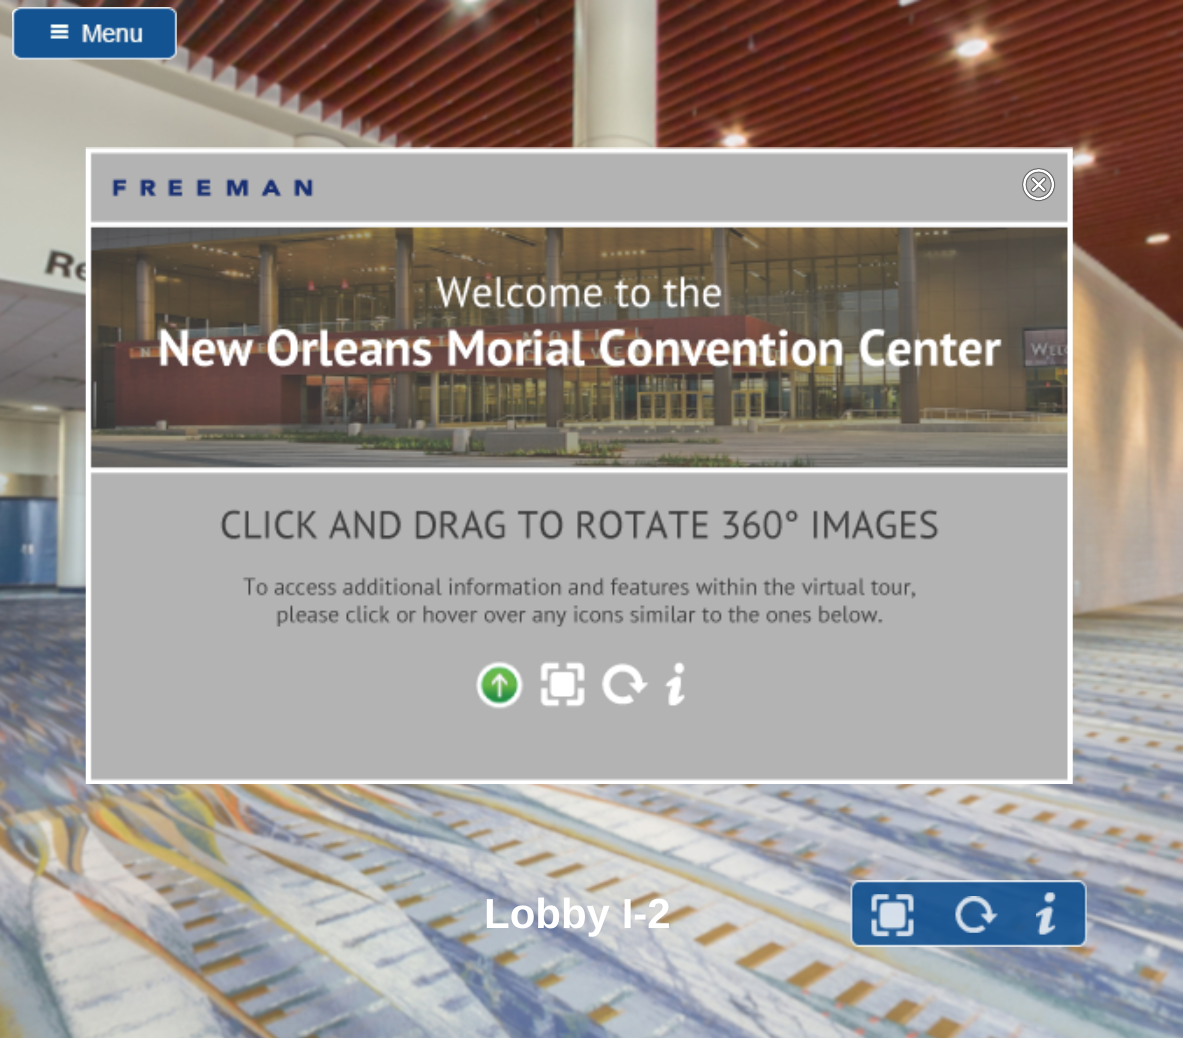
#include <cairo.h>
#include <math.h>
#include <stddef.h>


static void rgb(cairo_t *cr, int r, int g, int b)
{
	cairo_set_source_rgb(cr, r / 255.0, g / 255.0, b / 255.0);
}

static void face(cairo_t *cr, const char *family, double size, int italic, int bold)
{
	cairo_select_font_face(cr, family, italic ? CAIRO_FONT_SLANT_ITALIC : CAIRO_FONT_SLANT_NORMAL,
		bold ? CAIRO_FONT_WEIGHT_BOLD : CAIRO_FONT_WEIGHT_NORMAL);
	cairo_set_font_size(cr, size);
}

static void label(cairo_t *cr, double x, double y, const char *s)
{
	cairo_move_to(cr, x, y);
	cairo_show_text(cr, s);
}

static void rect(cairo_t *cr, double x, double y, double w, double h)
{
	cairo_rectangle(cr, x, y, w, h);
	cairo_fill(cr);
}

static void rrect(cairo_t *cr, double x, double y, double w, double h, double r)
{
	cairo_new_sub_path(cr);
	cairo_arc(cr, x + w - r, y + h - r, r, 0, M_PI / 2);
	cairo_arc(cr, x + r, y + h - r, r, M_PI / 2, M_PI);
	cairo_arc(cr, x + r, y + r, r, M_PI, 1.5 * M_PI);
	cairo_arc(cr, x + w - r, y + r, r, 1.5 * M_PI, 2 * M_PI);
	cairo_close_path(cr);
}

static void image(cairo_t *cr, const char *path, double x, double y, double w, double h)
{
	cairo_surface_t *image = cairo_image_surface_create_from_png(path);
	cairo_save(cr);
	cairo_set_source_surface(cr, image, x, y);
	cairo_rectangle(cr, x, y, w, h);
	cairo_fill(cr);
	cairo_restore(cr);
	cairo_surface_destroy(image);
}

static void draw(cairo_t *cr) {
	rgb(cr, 255, 255, 255);
	cairo_paint(cr);
	image(cr, "image0.png", 0, 0, 1183, 1038);
	rrect(cr, 13, 10, 61, 43, 4);
	rgb(cr, 255, 255, 255);
	cairo_stroke(cr);
	rgb(cr, 188, 188, 188);
	rect(cr, 12, 21, 3, 32);
	image(cr, "image1.png", 12, 7, 165, 53);
	image(cr, "image2.png", 85, 147, 988, 637);
	image(cr, "image3.png", 1022, 168, 34, 34);
	face(cr, "Liberation Sans", 42, 0, 1);
	rgb(cr, 255, 255, 255);
	label(cr, 484, 928, "Lobby I-2");
	image(cr, "image4.png", 850, 880, 237, 67);
	image(cr, "image5.png", 871, 894, 43, 43);
	image(cr, "image6.png", 955, 896, 43, 37);
	image(cr, "image7.png", 1036, 892, 20, 43);
}

int main(void) {
	cairo_surface_t *surface = cairo_image_surface_create(CAIRO_FORMAT_RGB24, 1183, 1038);
	cairo_t *cr = cairo_create(surface);
	cairo_font_options_t *options = cairo_font_options_create();
	cairo_font_options_set_hint_metrics(options, CAIRO_HINT_METRICS_OFF);
	cairo_font_options_set_hint_style(options, CAIRO_HINT_STYLE_NONE);
	cairo_set_font_options(cr, options);
	cairo_set_miter_limit(cr, 4);
	draw(cr);
	cairo_surface_write_to_png(surface, "render.png");
	cairo_font_options_destroy(options);
	cairo_destroy(cr);
	cairo_surface_destroy(surface);
	return 0;
}
